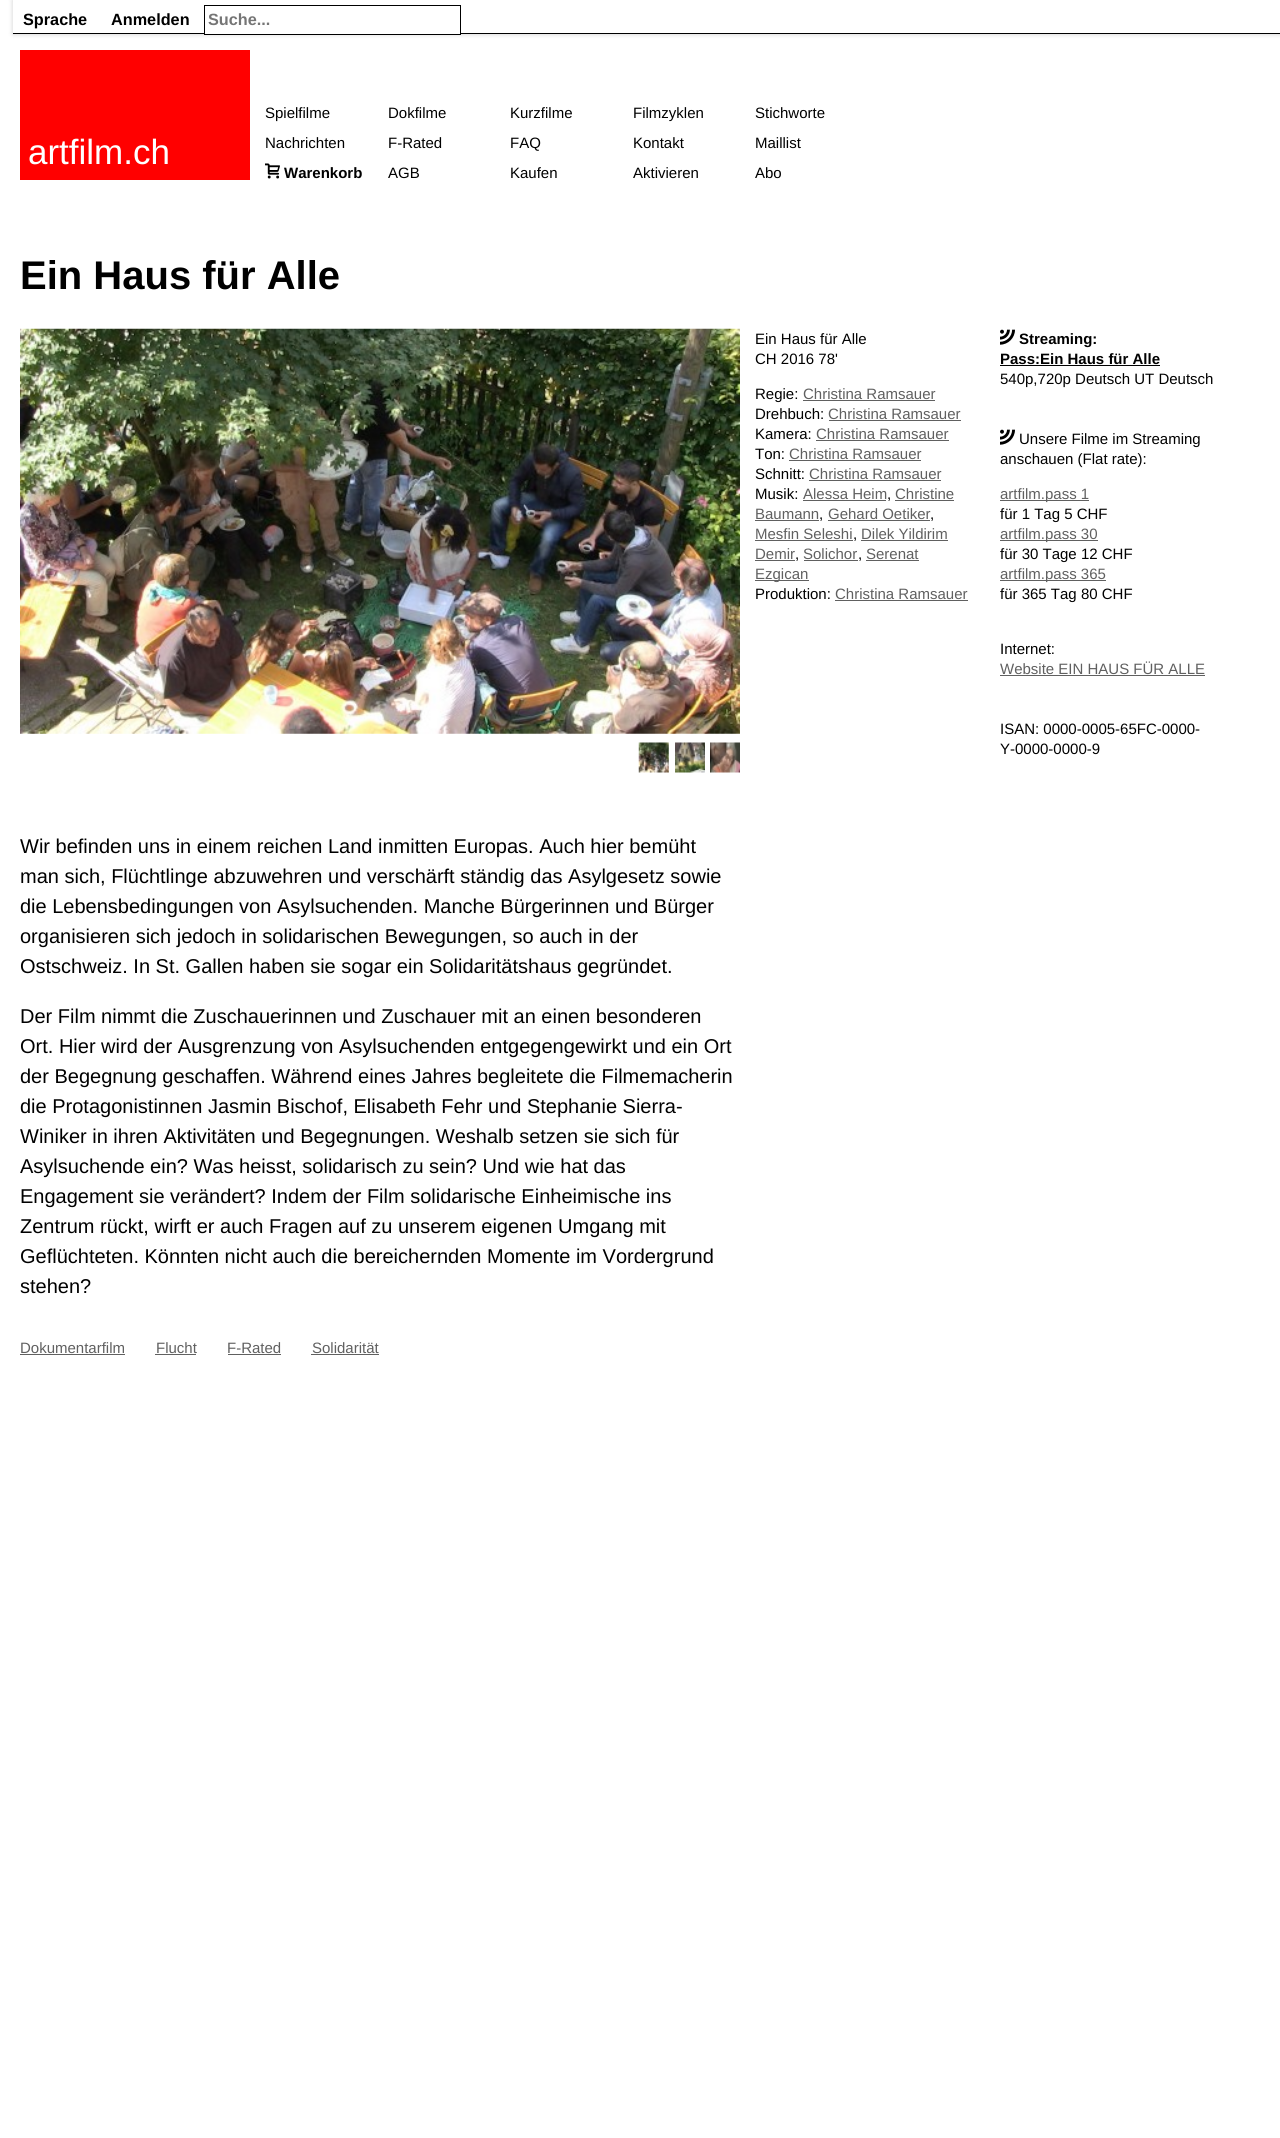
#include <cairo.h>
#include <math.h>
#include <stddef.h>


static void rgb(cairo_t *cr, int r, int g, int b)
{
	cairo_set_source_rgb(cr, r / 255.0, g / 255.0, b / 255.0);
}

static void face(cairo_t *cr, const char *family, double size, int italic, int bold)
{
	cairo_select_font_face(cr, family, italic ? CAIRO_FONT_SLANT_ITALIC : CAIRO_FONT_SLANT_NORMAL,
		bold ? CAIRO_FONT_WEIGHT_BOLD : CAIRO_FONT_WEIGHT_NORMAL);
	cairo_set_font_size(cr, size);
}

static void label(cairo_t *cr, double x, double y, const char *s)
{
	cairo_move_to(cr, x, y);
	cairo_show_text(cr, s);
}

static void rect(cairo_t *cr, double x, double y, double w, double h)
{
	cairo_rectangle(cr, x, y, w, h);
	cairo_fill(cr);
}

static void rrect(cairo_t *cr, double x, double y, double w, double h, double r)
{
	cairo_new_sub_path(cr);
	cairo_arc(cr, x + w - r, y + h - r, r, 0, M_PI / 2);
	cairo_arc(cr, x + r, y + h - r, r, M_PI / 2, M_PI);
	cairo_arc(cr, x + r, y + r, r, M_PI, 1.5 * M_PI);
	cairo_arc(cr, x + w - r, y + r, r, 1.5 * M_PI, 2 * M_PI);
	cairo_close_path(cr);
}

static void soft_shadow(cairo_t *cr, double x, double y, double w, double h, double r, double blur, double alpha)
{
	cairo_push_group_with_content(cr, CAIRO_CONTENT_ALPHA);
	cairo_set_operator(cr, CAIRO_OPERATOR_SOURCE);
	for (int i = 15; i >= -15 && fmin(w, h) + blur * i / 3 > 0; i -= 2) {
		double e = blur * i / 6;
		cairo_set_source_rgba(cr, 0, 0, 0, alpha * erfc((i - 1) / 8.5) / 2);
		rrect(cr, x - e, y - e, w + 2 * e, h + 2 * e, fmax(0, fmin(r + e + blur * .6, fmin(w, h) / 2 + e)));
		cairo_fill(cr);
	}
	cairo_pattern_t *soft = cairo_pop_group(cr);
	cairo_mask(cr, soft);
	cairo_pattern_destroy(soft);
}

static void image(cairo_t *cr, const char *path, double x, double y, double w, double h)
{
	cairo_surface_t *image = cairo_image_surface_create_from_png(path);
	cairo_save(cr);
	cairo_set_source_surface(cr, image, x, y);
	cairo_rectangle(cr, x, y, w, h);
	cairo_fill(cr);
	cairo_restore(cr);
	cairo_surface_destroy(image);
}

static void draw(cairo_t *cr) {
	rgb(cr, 255, 255, 255);
	cairo_paint(cr);
	rgb(cr, 0, 0, 0);
	soft_shadow(cr, 13, 0, 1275, 34, 0, 2.5, 0.2);
	rgb(cr, 255, 255, 255);
	rect(cr, 13, 0, 1267, 33);
	rgb(cr, 0, 0, 0);
	rect(cr, 13, 33, 1267, 1);
	face(cr, "Liberation Sans", 16.25, 0, 1);
	label(cr, 23, 25, "Sprache");
	label(cr, 111, 25, "Anmelden");
	rgb(cr, 255, 255, 255);
	rect(cr, 205, 33, 255, 1);
	cairo_rectangle(cr, 204.5, 5.5, 256, 29);
	rgb(cr, 0, 0, 0);
	cairo_set_line_width(cr, 1);
	cairo_stroke(cr);
	rgb(cr, 117, 117, 117);
	label(cr, 208, 25, "Suche...");
	rgb(cr, 255, 0, 0);
	rect(cr, 20, 50, 230, 130);
	face(cr, "Liberation Sans", 35, 0, 0);
	rgb(cr, 255, 255, 255);
	label(cr, 28, 164, "artfilm.ch");
	face(cr, "Liberation Sans", 15, 0, 0);
	rgb(cr, 0, 0, 0);
	label(cr, 265, 118, "Spielfilme");
	label(cr, 388, 118, "Dokfilme");
	label(cr, 510, 118, "Kurzfilme");
	label(cr, 633, 118, "Filmzyklen");
	label(cr, 755, 118, "Stichworte");
	label(cr, 265, 148, "Nachrichten");
	label(cr, 388, 148, "F-Rated");
	label(cr, 510, 148, "FAQ");
	label(cr, 633, 148, "Kontakt");
	label(cr, 755, 148, "Maillist");
	image(cr, "image0.png", 265, 163, 15, 16);
	face(cr, "Liberation Sans", 15, 0, 1);
	label(cr, 284, 178, "Warenkorb");
	face(cr, "Liberation Sans", 15, 0, 0);
	label(cr, 388, 178, "AGB");
	label(cr, 510, 178, "Kaufen");
	label(cr, 633, 178, "Aktivieren");
	label(cr, 755, 178, "Abo");
	face(cr, "Liberation Sans", 40, 0, 1);
	label(cr, 20, 289, "Ein Haus für Alle");
	face(cr, "Liberation Sans", 15, 0, 0);
	label(cr, 755, 344, "Ein Haus für Alle");
	label(cr, 755, 364, "CH 2016 78'");
	label(cr, 755, 399, "Regie:");
	rgb(cr, 96, 96, 96);
	label(cr, 803, 399, "Christina Ramsauer");
	rect(cr, 803, 400, 132, 1);
	rgb(cr, 0, 0, 0);
	label(cr, 755, 419, "Drehbuch:");
	rgb(cr, 96, 96, 96);
	label(cr, 828, 419, "Christina Ramsauer");
	rect(cr, 829, 420, 132, 1);
	rgb(cr, 0, 0, 0);
	label(cr, 755, 439, "Kamera:");
	rgb(cr, 96, 96, 96);
	label(cr, 816, 439, "Christina Ramsauer");
	rect(cr, 816, 440, 133, 1);
	rgb(cr, 0, 0, 0);
	label(cr, 755, 459, "Ton:");
	rgb(cr, 96, 96, 96);
	label(cr, 789, 459, "Christina Ramsauer");
	rect(cr, 789, 460, 132, 1);
	rgb(cr, 0, 0, 0);
	label(cr, 755, 479, "Schnitt:");
	rgb(cr, 96, 96, 96);
	label(cr, 809, 479, "Christina Ramsauer");
	rect(cr, 809, 480, 132, 1);
	rgb(cr, 0, 0, 0);
	label(cr, 755, 499, "Musik:");
	rgb(cr, 96, 96, 96);
	label(cr, 803, 499, "Alessa Heim");
	rect(cr, 803, 500, 83, 1);
	rgb(cr, 0, 0, 0);
	label(cr, 887, 499, ",");
	rgb(cr, 96, 96, 96);
	label(cr, 895, 499, "Christine");
	rect(cr, 895, 500, 59, 1);
	label(cr, 755, 519, "Baumann");
	rect(cr, 755, 520, 64, 1);
	rgb(cr, 0, 0, 0);
	label(cr, 819, 519, ",");
	rgb(cr, 96, 96, 96);
	label(cr, 828, 519, "Gehard Oetiker");
	rect(cr, 828, 520, 102, 1);
	rgb(cr, 0, 0, 0);
	label(cr, 930, 519, ",");
	rgb(cr, 96, 96, 96);
	label(cr, 755, 539, "Mesfin Seleshi");
	rect(cr, 755, 540, 98, 1);
	rgb(cr, 0, 0, 0);
	label(cr, 853, 539, ",");
	rgb(cr, 96, 96, 96);
	label(cr, 861, 539, "Dilek Yildirim");
	rect(cr, 861, 540, 87, 1);
	label(cr, 755, 559, "Demir");
	rect(cr, 755, 560, 40, 1);
	rgb(cr, 0, 0, 0);
	label(cr, 795, 559, ",");
	rgb(cr, 96, 96, 96);
	label(cr, 803, 559, "Solichor");
	rect(cr, 804, 560, 54, 1);
	rgb(cr, 0, 0, 0);
	label(cr, 858, 559, ",");
	rgb(cr, 96, 96, 96);
	label(cr, 866, 559, "Serenat");
	rect(cr, 866, 560, 53, 1);
	rect(cr, 755, 580, 54, 1);
	label(cr, 755, 579, "Ezgican");
	rgb(cr, 0, 0, 0);
	label(cr, 755, 599, "Produktion:");
	rgb(cr, 96, 96, 96);
	label(cr, 835, 599, "Christina Ramsauer");
	rect(cr, 835, 600, 133, 1);
	image(cr, "image1.png", 20, 328, 720, 406);
	image(cr, "image2.png", 638, 742, 31, 31);
	image(cr, "image3.png", 675, 742, 30, 31);
	image(cr, "image4.png", 710, 742, 30, 31);
	face(cr, "Liberation Sans", 20, 0, 0);
	rgb(cr, 0, 0, 0);
	label(cr, 20, 853, "Wir befinden uns in einem reichen Land inmitten Europas. Auch hier bemüht");
	label(cr, 20, 883, "man sich, Flüchtlinge abzuwehren und verschärft ständig das Asylgesetz sowie");
	label(cr, 20, 913, "die Lebensbedingungen von Asylsuchenden. Manche Bürgerinnen und Bürger");
	label(cr, 20, 943, "organisieren sich jedoch in solidarischen Bewegungen, so auch in der");
	label(cr, 20, 973, "Ostschweiz. In St. Gallen haben sie sogar ein Solidaritätshaus gegründet.");
	label(cr, 20, 1023, "Der Film nimmt die Zuschauerinnen und Zuschauer mit an einen besonderen");
	label(cr, 20, 1053, "Ort. Hier wird der Ausgrenzung von Asylsuchenden entgegengewirkt und ein Ort");
	label(cr, 20, 1083, "der Begegnung geschaffen. Während eines Jahres begleitete die Filmemacherin");
	label(cr, 20, 1113, "die Protagonistinnen Jasmin Bischof, Elisabeth Fehr und Stephanie Sierra-");
	label(cr, 20, 1143, "Winiker in ihren Aktivitäten und Begegnungen. Weshalb setzen sie sich für");
	label(cr, 20, 1173, "Asylsuchende ein? Was heisst, solidarisch zu sein? Und wie hat das");
	label(cr, 20, 1203, "Engagement sie verändert? Indem der Film solidarische Einheimische ins");
	label(cr, 20, 1233, "Zentrum rückt, wirft er auch Fragen auf zu unserem eigenen Umgang mit");
	label(cr, 20, 1263, "Geflüchteten. Könnten nicht auch die bereichernden Momente im Vordergrund");
	label(cr, 20, 1293, "stehen?");
	face(cr, "Liberation Sans", 15, 0, 0);
	rgb(cr, 96, 96, 96);
	label(cr, 20, 1353, "Dokumentarfilm");
	rect(cr, 20, 1354, 105, 1);
	label(cr, 156, 1353, "Flucht");
	rect(cr, 155, 1354, 41, 1);
	label(cr, 227, 1353, "F-Rated");
	rect(cr, 228, 1354, 53, 1);
	label(cr, 312, 1353, "Solidarität");
	rect(cr, 311, 1354, 68, 1);
	image(cr, "image5.png", 1000, 329, 15, 16);
	face(cr, "Liberation Sans", 15, 0, 1);
	rgb(cr, 0, 0, 0);
	label(cr, 1019, 344, "Streaming:");
	label(cr, 1000, 364, "Pass:Ein Haus für Alle");
	rect(cr, 1000, 365, 160, 1);
	face(cr, "Liberation Sans", 15, 0, 0);
	label(cr, 1000, 384, "540p,720p Deutsch UT Deutsch");
	image(cr, "image5.png", 1000, 429, 15, 16);
	label(cr, 1019, 444, "Unsere Filme im Streaming");
	label(cr, 1000, 464, "anschauen (Flat rate):");
	rgb(cr, 96, 96, 96);
	rect(cr, 1000, 500, 89, 1);
	label(cr, 1000, 499, "artfilm.pass 1");
	rgb(cr, 0, 0, 0);
	label(cr, 1000, 519, "für 1 Tag 5 CHF");
	rgb(cr, 96, 96, 96);
	rect(cr, 1000, 540, 98, 1);
	label(cr, 1000, 539, "artfilm.pass 30");
	rgb(cr, 0, 0, 0);
	label(cr, 1000, 559, "für 30 Tage 12 CHF");
	rgb(cr, 96, 96, 96);
	rect(cr, 1000, 580, 106, 1);
	label(cr, 1000, 579, "artfilm.pass 365");
	rgb(cr, 0, 0, 0);
	label(cr, 1000, 599, "für 365 Tag 80 CHF");
	label(cr, 1000, 654, "Internet:");
	rgb(cr, 96, 96, 96);
	label(cr, 1000, 674, "Website EIN HAUS FÜR ALLE");
	rect(cr, 1000, 675, 205, 1);
	rgb(cr, 0, 0, 0);
	label(cr, 1000, 734, "ISAN: 0000-0005-65FC-0000-");
	label(cr, 1000, 754, "Y-0000-0000-9");
}

int main(void) {
	cairo_surface_t *surface = cairo_image_surface_create(CAIRO_FORMAT_RGB24, 1280, 2138);
	cairo_t *cr = cairo_create(surface);
	cairo_font_options_t *options = cairo_font_options_create();
	cairo_font_options_set_hint_metrics(options, CAIRO_HINT_METRICS_OFF);
	cairo_font_options_set_hint_style(options, CAIRO_HINT_STYLE_NONE);
	cairo_set_font_options(cr, options);
	cairo_set_miter_limit(cr, 4);
	draw(cr);
	cairo_surface_write_to_png(surface, "render.png");
	cairo_font_options_destroy(options);
	cairo_destroy(cr);
	cairo_surface_destroy(surface);
	return 0;
}
